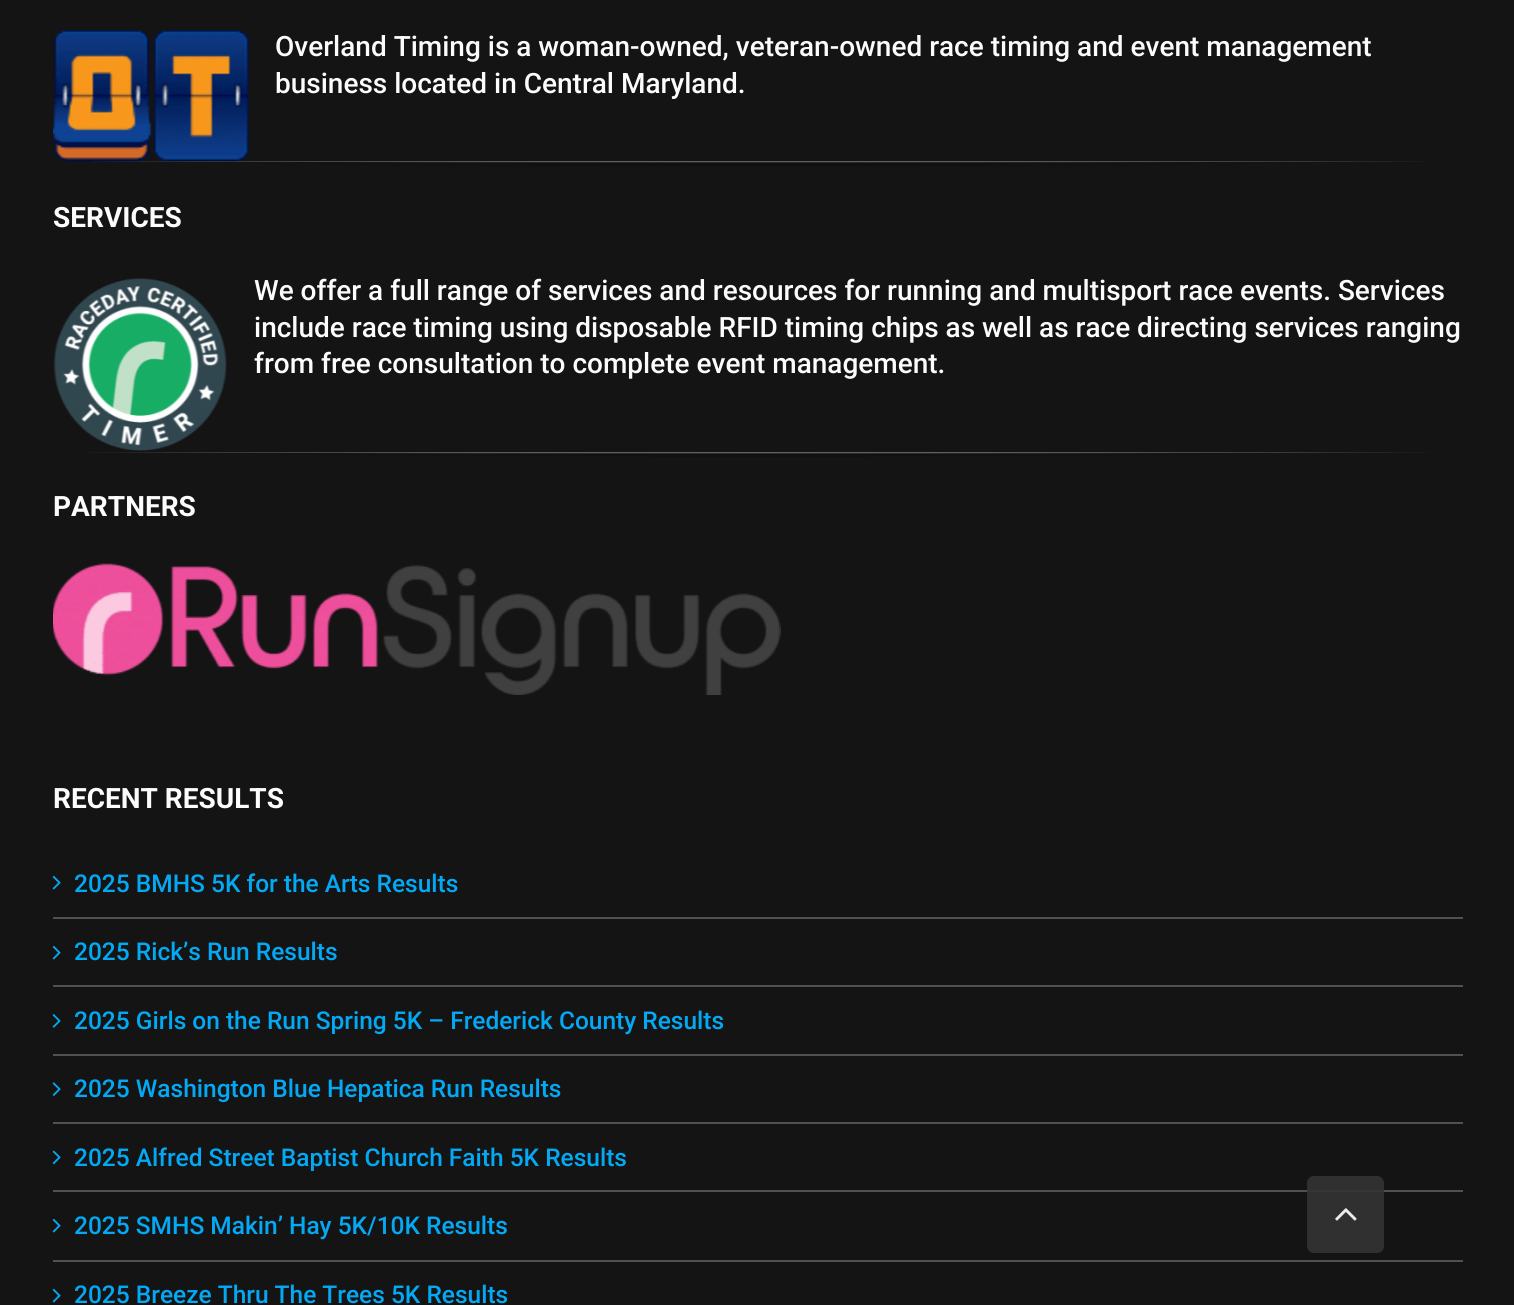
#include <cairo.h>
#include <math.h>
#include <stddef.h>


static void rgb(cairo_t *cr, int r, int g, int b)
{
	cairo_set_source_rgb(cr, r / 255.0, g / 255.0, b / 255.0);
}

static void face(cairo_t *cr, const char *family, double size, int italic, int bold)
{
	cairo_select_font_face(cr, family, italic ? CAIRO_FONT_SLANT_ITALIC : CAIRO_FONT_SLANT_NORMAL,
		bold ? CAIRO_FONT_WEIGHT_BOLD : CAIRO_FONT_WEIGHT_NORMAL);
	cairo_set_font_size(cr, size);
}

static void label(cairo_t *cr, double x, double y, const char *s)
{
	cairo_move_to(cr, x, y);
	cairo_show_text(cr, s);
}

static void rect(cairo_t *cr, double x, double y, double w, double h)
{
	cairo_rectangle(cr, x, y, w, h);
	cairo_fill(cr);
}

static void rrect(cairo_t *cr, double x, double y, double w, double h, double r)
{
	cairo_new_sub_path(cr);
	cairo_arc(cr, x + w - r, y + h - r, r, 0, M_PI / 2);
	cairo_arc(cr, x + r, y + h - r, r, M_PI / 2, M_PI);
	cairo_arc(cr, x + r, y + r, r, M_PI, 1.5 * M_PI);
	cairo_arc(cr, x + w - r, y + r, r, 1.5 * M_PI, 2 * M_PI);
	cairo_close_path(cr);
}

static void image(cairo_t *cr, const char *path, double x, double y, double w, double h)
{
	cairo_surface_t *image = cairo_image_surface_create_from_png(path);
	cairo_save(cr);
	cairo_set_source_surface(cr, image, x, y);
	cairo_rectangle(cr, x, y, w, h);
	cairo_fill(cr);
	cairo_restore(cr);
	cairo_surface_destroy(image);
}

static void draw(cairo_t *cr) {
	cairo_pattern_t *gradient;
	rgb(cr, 20, 20, 20);
	cairo_paint(cr);
	image(cr, "image0.png", 53, 30, 196, 132);
	face(cr, "Roboto Medium", 28, 0, 0);
	rgb(cr, 252, 252, 252);
	label(cr, 275, 56, "Overland Timing is a woman-owned, veteran-owned race timing and event management");
	label(cr, 275, 93, "business located in Central Maryland.");
	gradient = cairo_pattern_create_radial(0, 0, 0, 0, 0, 1);
	cairo_pattern_set_matrix(gradient, &(cairo_matrix_t){1.0 / 997, 0, 0, 1.0 / 3.7, -1.0 * 758 / 997, -1.0 * 160 / 3.7});
	cairo_pattern_add_color_stop_rgba(gradient, 0, 1, 1, 1, 1);
	cairo_pattern_add_color_stop_rgba(gradient, 0.8, 1, 1, 1, 0);
	cairo_set_source(cr, gradient);
	cairo_pattern_destroy(gradient);
	rect(cr, 93, 161, 1330, 2);
	gradient = cairo_pattern_create_radial(0, 0, 0, 0, 0, 1);
	cairo_pattern_set_matrix(gradient, &(cairo_matrix_t){1.0 / 997, 0, 0, 1.0 / 22, -1.0 * 758 / 997, -1.0 * 156 / 22});
	cairo_pattern_add_color_stop_rgba(gradient, 0, 0, 0, 0, 0.5);
	cairo_pattern_add_color_stop_rgba(gradient, 0.65, 0, 0, 0, 0);
	cairo_set_source(cr, gradient);
	cairo_pattern_destroy(gradient);
	rect(cr, 220, 161, 1070, 6);
	face(cr, "Roboto", 28, 0, 1);
	rgb(cr, 252, 252, 252);
	label(cr, 53, 227, "SERVICES");
	image(cr, "image1.png", 53, 278, 174, 173);
	face(cr, "Roboto Medium", 28, 0, 0);
	label(cr, 254, 300, "We offer a full range of services and resources for running and multisport race events. Services");
	label(cr, 254, 337, "include race timing using disposable RFID timing chips as well as race directing services ranging");
	label(cr, 254, 373, "from free consultation to complete event management.");
	gradient = cairo_pattern_create_radial(0, 0, 0, 0, 0, 1);
	cairo_pattern_set_matrix(gradient, &(cairo_matrix_t){1.0 / 997, 0, 0, 1.0 / 3.7, -1.0 * 758 / 997, -1.0 * 451 / 3.7});
	cairo_pattern_add_color_stop_rgba(gradient, 0, 1, 1, 1, 1);
	cairo_pattern_add_color_stop_rgba(gradient, 0.8, 0.078, 0.078, 0.078, 1);
	cairo_set_source(cr, gradient);
	cairo_pattern_destroy(gradient);
	rect(cr, 83, 452, 1350, 2);
	gradient = cairo_pattern_create_radial(0, 0, 0, 0, 0, 1);
	cairo_pattern_set_matrix(gradient, &(cairo_matrix_t){1.0 / 997, 0, 0, 1.0 / 22, -1.0 * 758 / 997, -1.0 * 446 / 22});
	cairo_pattern_add_color_stop_rgba(gradient, 0, 0, 0, 0, 0.5);
	cairo_pattern_add_color_stop_rgba(gradient, 0.65, 0, 0, 0, 0);
	cairo_set_source(cr, gradient);
	cairo_pattern_destroy(gradient);
	rect(cr, 243, 452, 1030, 5);
	face(cr, "Roboto", 28, 0, 1);
	rgb(cr, 252, 252, 252);
	label(cr, 53, 516, "PARTNERS");
	image(cr, "image2.png", 53, 563, 728, 132);
	label(cr, 53, 808, "RECENT RESULTS");
	rgb(cr, 80, 81, 82);
	rect(cr, 53, 917, 1410, 2);
	image(cr, "image3.png", 52, 875, 9, 15);
	face(cr, "Roboto Medium", 24.5, 0, 0);
	rgb(cr, 3, 169, 244);
	label(cr, 74, 892, "2025 BMHS 5K for the Arts Results");
	rgb(cr, 80, 81, 82);
	rect(cr, 53, 985, 1410, 2);
	image(cr, "image3.png", 52, 945, 9, 15);
	rgb(cr, 3, 169, 244);
	label(cr, 74, 960, "2025 Rick’s Run Results");
	rgb(cr, 80, 81, 82);
	rect(cr, 53, 1054, 1410, 2);
	image(cr, "image4.png", 52, 1014, 9, 14);
	rgb(cr, 3, 169, 244);
	label(cr, 74, 1029, "2025 Girls on the Run Spring 5K – Frederick County Results");
	rgb(cr, 80, 81, 82);
	rect(cr, 53, 1122, 1410, 2);
	image(cr, "image5.png", 52, 1082, 9, 14);
	rgb(cr, 3, 169, 244);
	label(cr, 74, 1097, "2025 Washington Blue Hepatica Run Results");
	rgb(cr, 80, 81, 82);
	rect(cr, 53, 1190, 1410, 2);
	image(cr, "image6.png", 52, 1150, 9, 15);
	rgb(cr, 3, 169, 244);
	label(cr, 74, 1166, "2025 Alfred Street Baptist Church Faith 5K Results");
	rgb(cr, 80, 81, 82);
	rect(cr, 53, 1260, 1410, 2);
	image(cr, "image3.png", 52, 1218, 9, 15);
	rgb(cr, 3, 169, 244);
	label(cr, 74, 1234, "2025 SMHS Makin’ Hay 5K/10K Results");
	image(cr, "image3.png", 52, 1288, 9, 15);
	label(cr, 74, 1303, "2025 Breeze Thru The Trees 5K Results");
	cairo_set_source_rgba(cr, 0.2, 0.2, 0.2, 0.9);
	rrect(cr, 1307, 1176, 77, 77, 7);
	cairo_fill(cr);
	image(cr, "image7.png", 1335, 1208, 22, 13);
}

int main(void) {
	cairo_surface_t *surface = cairo_image_surface_create(CAIRO_FORMAT_RGB24, 1514, 1305);
	cairo_t *cr = cairo_create(surface);
	cairo_font_options_t *options = cairo_font_options_create();
	cairo_font_options_set_hint_metrics(options, CAIRO_HINT_METRICS_OFF);
	cairo_font_options_set_hint_style(options, CAIRO_HINT_STYLE_NONE);
	cairo_set_font_options(cr, options);
	cairo_set_miter_limit(cr, 4);
	draw(cr);
	cairo_surface_write_to_png(surface, "render.png");
	cairo_font_options_destroy(options);
	cairo_destroy(cr);
	cairo_surface_destroy(surface);
	return 0;
}
